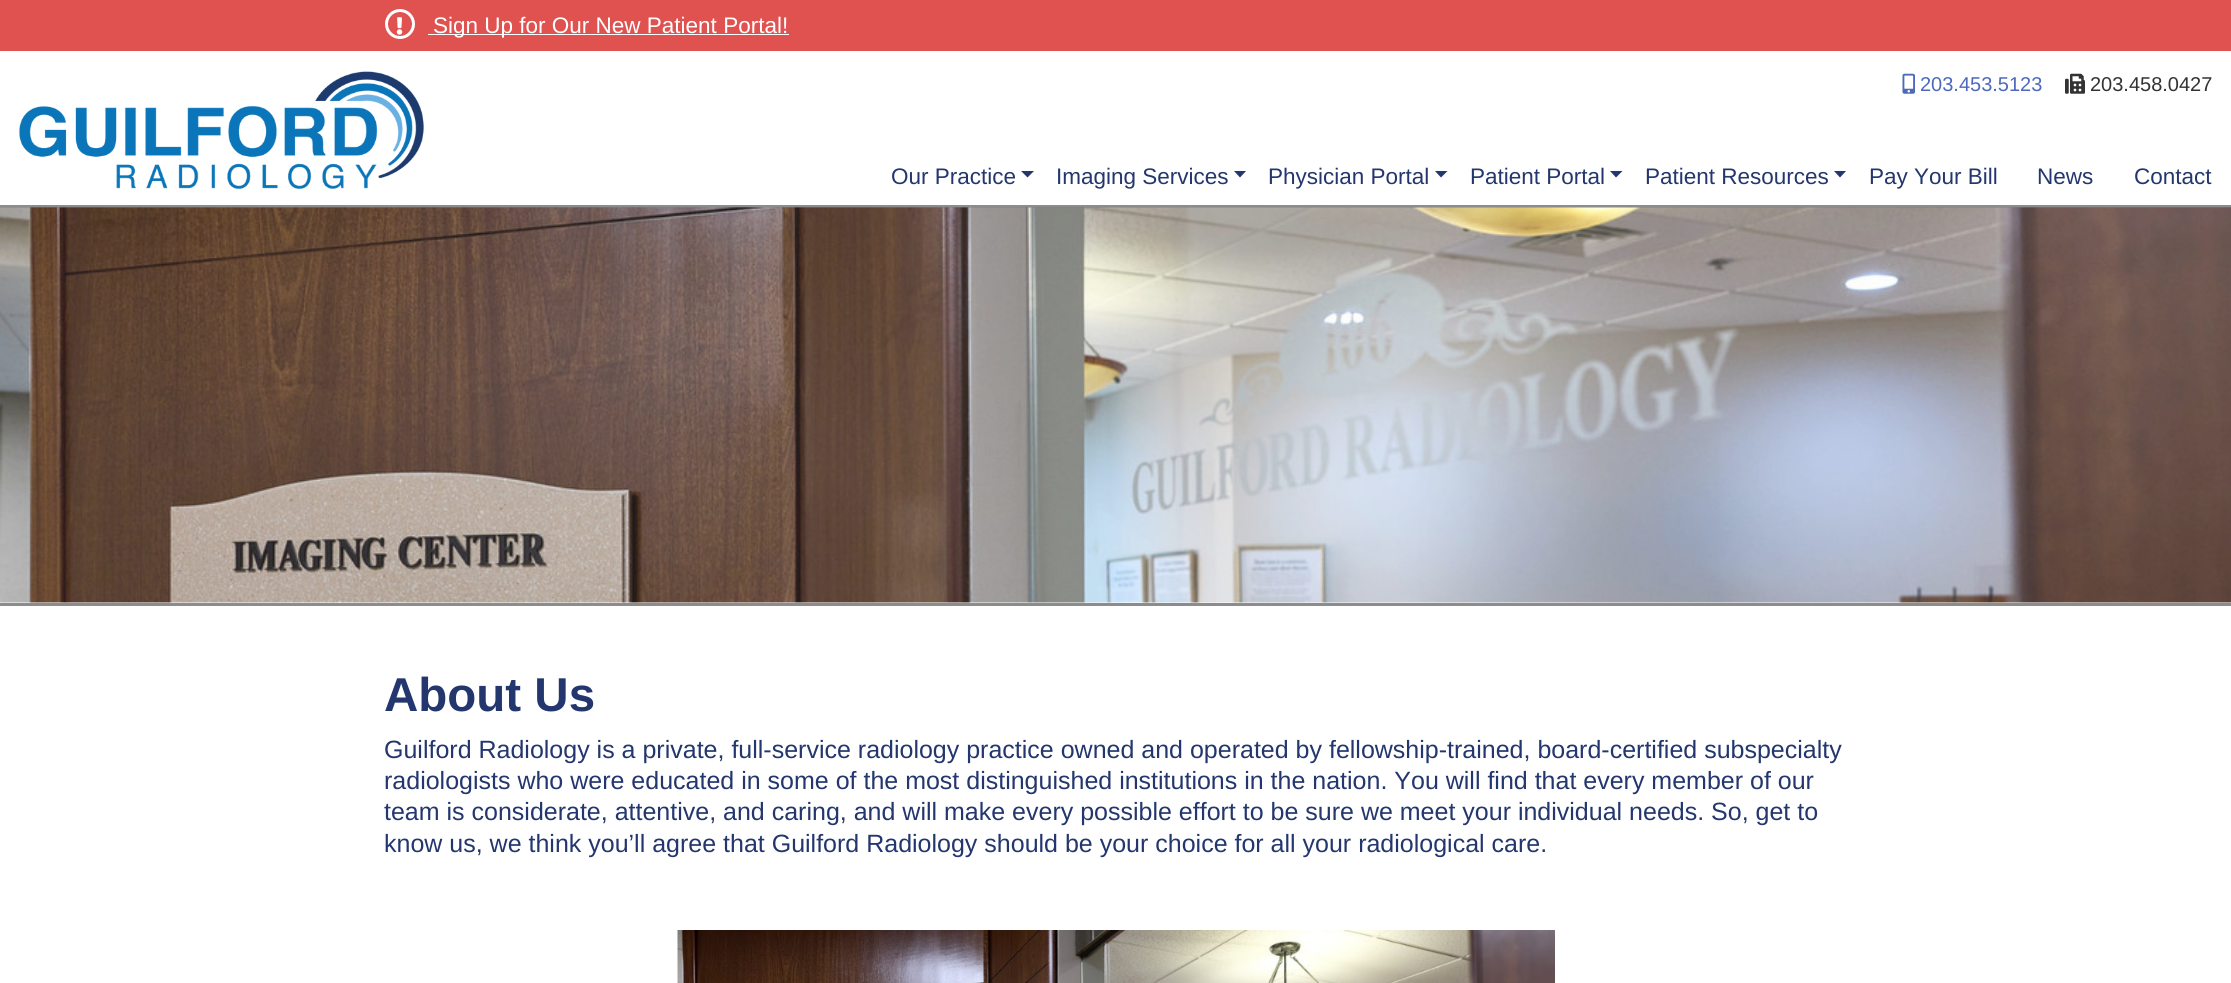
#include <cairo.h>
#include <math.h>
#include <stddef.h>


static void rgb(cairo_t *cr, int r, int g, int b)
{
	cairo_set_source_rgb(cr, r / 255.0, g / 255.0, b / 255.0);
}

static void face(cairo_t *cr, const char *family, double size, int italic, int bold)
{
	cairo_select_font_face(cr, family, italic ? CAIRO_FONT_SLANT_ITALIC : CAIRO_FONT_SLANT_NORMAL,
		bold ? CAIRO_FONT_WEIGHT_BOLD : CAIRO_FONT_WEIGHT_NORMAL);
	cairo_set_font_size(cr, size);
}

static void label(cairo_t *cr, double x, double y, const char *s)
{
	cairo_move_to(cr, x, y);
	cairo_show_text(cr, s);
}

static void rect(cairo_t *cr, double x, double y, double w, double h)
{
	cairo_rectangle(cr, x, y, w, h);
	cairo_fill(cr);
}

static void image(cairo_t *cr, const char *path, double x, double y, double w, double h)
{
	cairo_surface_t *image = cairo_image_surface_create_from_png(path);
	cairo_save(cr);
	cairo_set_source_surface(cr, image, x, y);
	cairo_rectangle(cr, x, y, w, h);
	cairo_fill(cr);
	cairo_restore(cr);
	cairo_surface_destroy(image);
}

static void draw(cairo_t *cr) {
	rgb(cr, 255, 255, 255);
	cairo_paint(cr);
	rgb(cr, 224, 82, 80);
	rect(cr, 0, 0, 2231, 51);
	cairo_arc(cr, 400, 24, 13.5, 0, 2 * M_PI);
	rgb(cr, 255, 255, 255);
	cairo_set_line_width(cr, 3);
	cairo_stroke(cr);
	image(cr, "image0.png", 396, 17, 7, 18);
	rect(cr, 428, 34, 361, 1);
	face(cr, "Liberation Sans", 22.5, 0, 0);
	label(cr, 433, 33, "Sign Up for Our New Patient Portal!");
	rgb(cr, 140, 140, 140);
	rect(cr, 0, 205, 2231, 3);
	image(cr, "image1.png", 19, 71, 405, 118);
	image(cr, "image2.png", 1902, 73, 13, 21);
	face(cr, "Liberation Sans", 20, 0, 0);
	rgb(cr, 76, 105, 189);
	label(cr, 1920, 91, "203.453.5123");
	image(cr, "image3.png", 2065, 73, 20, 21);
	rgb(cr, 51, 51, 51);
	label(cr, 2090, 91, "203.458.0427");
	face(cr, "Liberation Sans", 22.5, 0, 0);
	rgb(cr, 35, 54, 110);
	label(cr, 891, 184, "Our Practice");
	cairo_new_path(cr);
	cairo_move_to(cr, 1021, 171);
	cairo_line_to(cr, 1034, 171);
	cairo_line_to(cr, 1027.5, 177.5);
	cairo_close_path(cr);
	cairo_fill(cr);
	label(cr, 1056, 184, "Imaging Services");
	cairo_new_path(cr);
	cairo_move_to(cr, 1234, 171);
	cairo_line_to(cr, 1246, 171);
	cairo_line_to(cr, 1240, 177.5);
	cairo_close_path(cr);
	cairo_fill(cr);
	label(cr, 1268, 184, "Physician Portal");
	cairo_new_path(cr);
	cairo_move_to(cr, 1435, 171);
	cairo_line_to(cr, 1447.5, 171);
	cairo_line_to(cr, 1441, 177.5);
	cairo_close_path(cr);
	cairo_fill(cr);
	label(cr, 1470, 184, "Patient Portal");
	cairo_new_path(cr);
	cairo_move_to(cr, 1610, 171);
	cairo_line_to(cr, 1622.5, 171);
	cairo_line_to(cr, 1616, 177.5);
	cairo_close_path(cr);
	cairo_fill(cr);
	label(cr, 1645, 184, "Patient Resources");
	cairo_new_path(cr);
	cairo_move_to(cr, 1834, 171);
	cairo_line_to(cr, 1846, 171);
	cairo_line_to(cr, 1840, 177.5);
	cairo_close_path(cr);
	cairo_fill(cr);
	label(cr, 1869, 184, "Pay Your Bill");
	label(cr, 2037, 184, "News");
	label(cr, 2134, 184, "Contact");
	image(cr, "image4.png", 0, 207, 2231, 396);
	rgb(cr, 140, 140, 140);
	rect(cr, 0, 603, 2231, 3);
	face(cr, "Liberation Sans", 47.5, 0, 1);
	rgb(cr, 35, 54, 110);
	label(cr, 384, 711, "About Us");
	face(cr, "Liberation Sans", 25, 0, 0);
	label(cr, 384, 758, "Guilford Radiology is a private, full-service radiology practice owned and operated by fellowship-trained, board-certified subspecialty");
	label(cr, 384, 789, "radiologists who were educated in some of the most distinguished institutions in the nation. You will find that every member of our");
	label(cr, 384, 820, "team is considerate, attentive, and caring, and will make every possible effort to be sure we meet your individual needs. So, get to");
	label(cr, 384, 852, "know us, we think you’ll agree that Guilford Radiology should be your choice for all your radiological care.");
	image(cr, "image5.png", 677, 930, 878, 53);
}

int main(void) {
	cairo_surface_t *surface = cairo_image_surface_create(CAIRO_FORMAT_RGB24, 2231, 983);
	cairo_t *cr = cairo_create(surface);
	cairo_font_options_t *options = cairo_font_options_create();
	cairo_font_options_set_hint_metrics(options, CAIRO_HINT_METRICS_OFF);
	cairo_font_options_set_hint_style(options, CAIRO_HINT_STYLE_NONE);
	cairo_set_font_options(cr, options);
	cairo_set_miter_limit(cr, 4);
	draw(cr);
	cairo_surface_write_to_png(surface, "render.png");
	cairo_font_options_destroy(options);
	cairo_destroy(cr);
	cairo_surface_destroy(surface);
	return 0;
}
